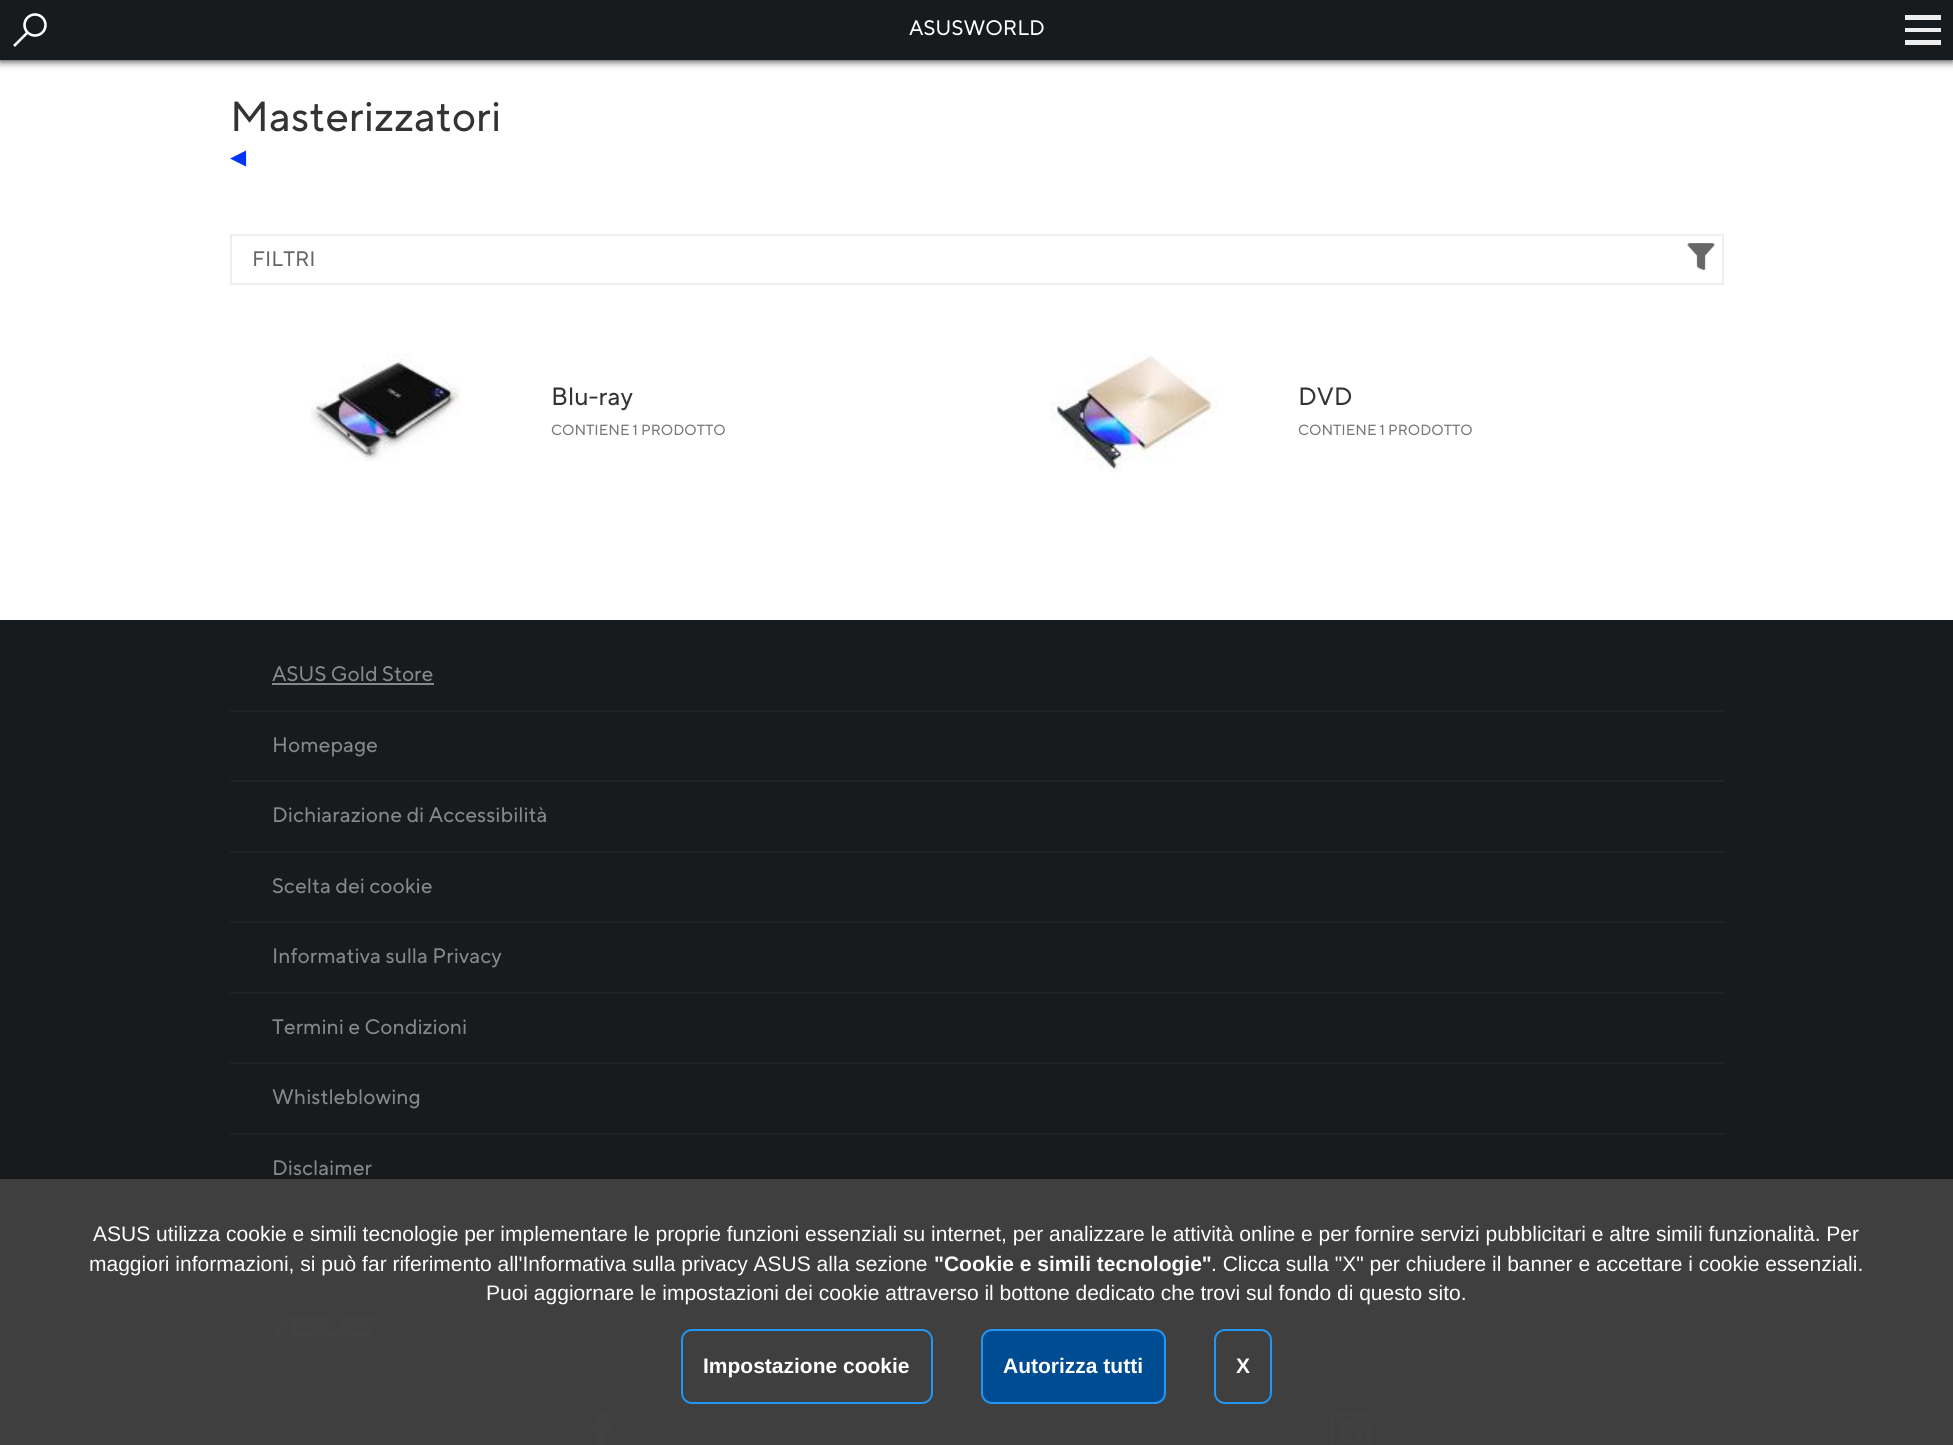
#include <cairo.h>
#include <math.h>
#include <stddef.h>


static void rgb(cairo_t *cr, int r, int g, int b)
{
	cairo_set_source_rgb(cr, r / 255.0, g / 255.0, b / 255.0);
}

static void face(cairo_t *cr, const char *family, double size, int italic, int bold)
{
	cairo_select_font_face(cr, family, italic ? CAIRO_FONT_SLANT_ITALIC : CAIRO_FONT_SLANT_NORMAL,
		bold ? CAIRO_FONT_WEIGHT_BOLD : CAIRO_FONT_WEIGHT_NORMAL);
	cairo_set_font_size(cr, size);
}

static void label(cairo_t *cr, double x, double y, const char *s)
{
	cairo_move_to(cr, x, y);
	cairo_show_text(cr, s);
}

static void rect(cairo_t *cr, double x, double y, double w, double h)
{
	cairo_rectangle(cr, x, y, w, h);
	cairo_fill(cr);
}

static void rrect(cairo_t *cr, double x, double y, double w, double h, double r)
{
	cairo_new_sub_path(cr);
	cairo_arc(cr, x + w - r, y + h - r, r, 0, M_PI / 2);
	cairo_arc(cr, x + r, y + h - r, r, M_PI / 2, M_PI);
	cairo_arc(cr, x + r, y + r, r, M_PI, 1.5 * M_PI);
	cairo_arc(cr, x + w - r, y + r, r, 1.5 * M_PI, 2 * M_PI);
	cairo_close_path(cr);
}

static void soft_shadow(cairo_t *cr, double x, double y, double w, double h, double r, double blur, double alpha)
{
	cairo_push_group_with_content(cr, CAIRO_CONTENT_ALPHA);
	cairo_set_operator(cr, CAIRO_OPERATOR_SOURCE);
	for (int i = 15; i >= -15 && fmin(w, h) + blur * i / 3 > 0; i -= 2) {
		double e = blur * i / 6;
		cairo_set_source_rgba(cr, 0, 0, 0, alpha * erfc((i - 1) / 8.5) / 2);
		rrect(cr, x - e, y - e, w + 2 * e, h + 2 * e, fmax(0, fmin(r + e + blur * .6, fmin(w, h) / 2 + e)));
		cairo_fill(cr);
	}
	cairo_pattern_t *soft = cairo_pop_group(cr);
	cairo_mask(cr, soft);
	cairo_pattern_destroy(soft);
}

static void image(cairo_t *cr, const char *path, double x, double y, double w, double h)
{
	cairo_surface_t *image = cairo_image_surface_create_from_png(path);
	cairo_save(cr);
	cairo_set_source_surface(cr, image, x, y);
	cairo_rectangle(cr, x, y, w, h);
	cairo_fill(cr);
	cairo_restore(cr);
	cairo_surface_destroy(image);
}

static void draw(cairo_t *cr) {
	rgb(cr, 255, 255, 255);
	cairo_paint(cr);
	rgb(cr, 0, 0, 0);
	soft_shadow(cr, 0, 0, 1953, 60, 0, 4.5, 1);
	rgb(cr, 23, 27, 30);
	rect(cr, 0, 0, 1953, 60);
	cairo_arc(cr, 35, 25, 10.5, 0, 2 * M_PI);
	rgb(cr, 255, 255, 255);
	cairo_set_line_width(cr, 2.6);
	cairo_stroke(cr);
	cairo_new_path(cr);
	cairo_move_to(cr, 14, 46);
	cairo_line_to(cr, 27.5, 32.5);
	cairo_stroke(cr);
	face(cr, "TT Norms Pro", 21, 0, 0);
	label(cr, 909, 35, "ASUSWORLD");
	rgb(cr, 238, 238, 238);
	rect(cr, 1905, 15, 36, 5);
	rect(cr, 1905, 28, 36, 4);
	rect(cr, 1905, 40, 36, 5);
	face(cr, "TT Norms Pro", 42, 0, 0);
	rgb(cr, 51, 51, 51);
	label(cr, 230, 131, "Masterizzatori");
	face(cr, "DejaVu Sans", 21, 0, 0);
	rgb(cr, 0, 51, 255);
	label(cr, 230, 164, "◀");
	cairo_rectangle(cr, 231, 235, 1492, 49);
	rgb(cr, 238, 238, 238);
	cairo_set_line_width(cr, 2);
	cairo_stroke(cr);
	face(cr, "TT Norms Pro", 21, 0, 0);
	rgb(cr, 102, 102, 102);
	label(cr, 252, 266, "FILTRI");
	image(cr, "image0.png", 1687, 243, 28, 27);
	image(cr, "image1.png", 310, 353, 150, 108);
	face(cr, "TT Norms Pro", 25, 0, 0);
	rgb(cr, 51, 51, 51);
	label(cr, 551, 405, "Blu-ray");
	face(cr, "TT Norms Pro", 14.75, 0, 0);
	rgb(cr, 118, 118, 118);
	label(cr, 551, 435, "CONTIENE 1 PRODOTTO");
	image(cr, "image2.png", 1050, 353, 168, 120);
	face(cr, "TT Norms Pro", 25, 0, 0);
	rgb(cr, 51, 51, 51);
	label(cr, 1298, 405, "DVD");
	face(cr, "TT Norms Pro", 14.75, 0, 0);
	rgb(cr, 118, 118, 118);
	label(cr, 1298, 435, "CONTIENE 1 PRODOTTO");
	rgb(cr, 23, 27, 30);
	rect(cr, 0, 620, 1953, 559);
	rgb(cr, 63, 63, 63);
	rect(cr, 0, 1179, 1953, 266);
	rgb(cr, 34, 34, 34);
	rect(cr, 230, 710, 1494, 2);
	face(cr, "TT Norms Pro", 21, 0, 0);
	rgb(cr, 136, 136, 136);
	label(cr, 272, 681, "ASUS Gold Store");
	rect(cr, 272, 683, 162, 2);
	rgb(cr, 34, 34, 34);
	rect(cr, 230, 780, 1494, 2);
	rgb(cr, 136, 136, 136);
	label(cr, 272, 752, "Homepage");
	rgb(cr, 34, 34, 34);
	rect(cr, 230, 851, 1494, 2);
	rgb(cr, 136, 136, 136);
	label(cr, 272, 822, "Dichiarazione di Accessibilità");
	rgb(cr, 34, 34, 34);
	rect(cr, 230, 921, 1494, 2);
	rgb(cr, 136, 136, 136);
	label(cr, 272, 893, "Scelta dei cookie");
	rgb(cr, 34, 34, 34);
	rect(cr, 230, 992, 1494, 2);
	rgb(cr, 136, 136, 136);
	label(cr, 272, 963, "Informativa sulla Privacy");
	rgb(cr, 34, 34, 34);
	rect(cr, 230, 1062, 1494, 2);
	rgb(cr, 136, 136, 136);
	label(cr, 272, 1034, "Termini e Condizioni");
	rgb(cr, 34, 34, 34);
	rect(cr, 230, 1133, 1494, 2);
	rgb(cr, 136, 136, 136);
	label(cr, 272, 1104, "Whistleblowing");
	label(cr, 272, 1175, "Disclaimer");
	image(cr, "image3.png", 272, 1235, 45, 24);
	image(cr, "image4.png", 272, 1316, 102, 21);
	image(cr, "image5.png", 593, 1412, 20, 33);
	image(cr, "image6.png", 1329, 1411, 42, 34);
	face(cr, "Liberation Sans", 21, 0, 0);
	rgb(cr, 255, 255, 255);
	label(cr, 93, 1241, "ASUS utilizza cookie e simili tecnologie per implementare le proprie funzioni essenziali su internet, per analizzare le attività online e per fornire servizi pubblicitari e altre simili funzionalità. Per");
	label(cr, 89, 1271, "maggiori informazioni, si può far riferimento all'Informativa sulla privacy ASUS alla sezione");
	face(cr, "Liberation Sans", 21, 0, 1);
	label(cr, 934, 1271, "\"Cookie e simili tecnologie\"");
	face(cr, "Liberation Sans", 21, 0, 0);
	label(cr, 1211, 1271, ". Clicca sulla \"X\" per chiudere il banner e accettare i cookie essenziali.");
	label(cr, 486, 1300, "Puoi aggiornare le impostazioni dei cookie attraverso il bottone dedicato che trovi sul fondo di questo sito.");
	rrect(cr, 682, 1330, 250, 73, 10);
	rgb(cr, 33, 150, 243);
	cairo_stroke(cr);
	face(cr, "Liberation Sans", 21, 0, 1);
	rgb(cr, 255, 255, 255);
	label(cr, 703, 1373, "Impostazione cookie");
	rgb(cr, 0, 76, 147);
	rrect(cr, 982, 1330, 183, 73, 10);
	cairo_fill_preserve(cr);
	rgb(cr, 33, 150, 243);
	cairo_stroke(cr);
	rgb(cr, 255, 255, 255);
	label(cr, 1003, 1373, "Autorizza tutti");
	rrect(cr, 1215, 1330, 56, 73, 10);
	rgb(cr, 33, 150, 243);
	cairo_stroke(cr);
	rgb(cr, 255, 255, 255);
	label(cr, 1236, 1373, "X");
}

int main(void) {
	cairo_surface_t *surface = cairo_image_surface_create(CAIRO_FORMAT_RGB24, 1953, 1445);
	cairo_t *cr = cairo_create(surface);
	cairo_font_options_t *options = cairo_font_options_create();
	cairo_font_options_set_hint_metrics(options, CAIRO_HINT_METRICS_OFF);
	cairo_font_options_set_hint_style(options, CAIRO_HINT_STYLE_NONE);
	cairo_set_font_options(cr, options);
	cairo_set_miter_limit(cr, 4);
	draw(cr);
	cairo_surface_write_to_png(surface, "render.png");
	cairo_font_options_destroy(options);
	cairo_destroy(cr);
	cairo_surface_destroy(surface);
	return 0;
}
